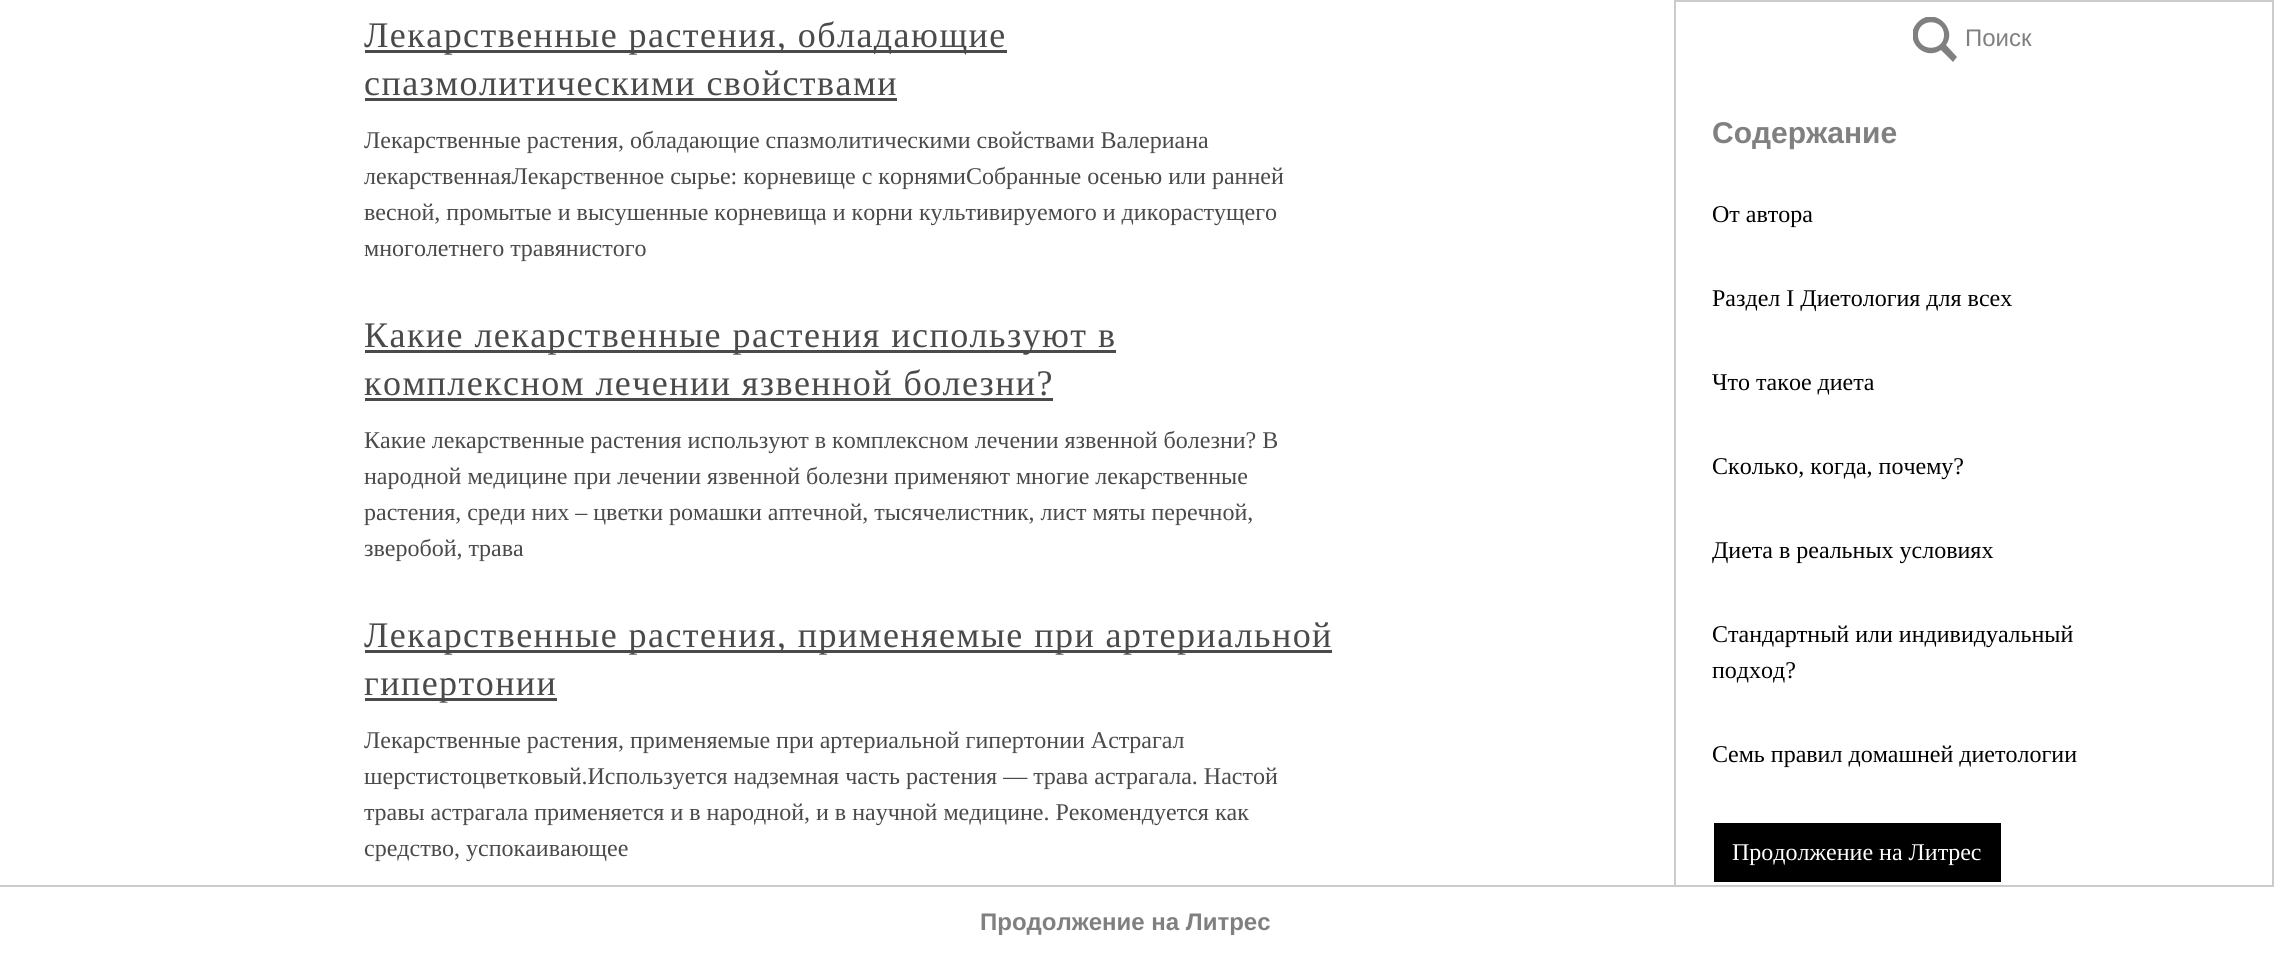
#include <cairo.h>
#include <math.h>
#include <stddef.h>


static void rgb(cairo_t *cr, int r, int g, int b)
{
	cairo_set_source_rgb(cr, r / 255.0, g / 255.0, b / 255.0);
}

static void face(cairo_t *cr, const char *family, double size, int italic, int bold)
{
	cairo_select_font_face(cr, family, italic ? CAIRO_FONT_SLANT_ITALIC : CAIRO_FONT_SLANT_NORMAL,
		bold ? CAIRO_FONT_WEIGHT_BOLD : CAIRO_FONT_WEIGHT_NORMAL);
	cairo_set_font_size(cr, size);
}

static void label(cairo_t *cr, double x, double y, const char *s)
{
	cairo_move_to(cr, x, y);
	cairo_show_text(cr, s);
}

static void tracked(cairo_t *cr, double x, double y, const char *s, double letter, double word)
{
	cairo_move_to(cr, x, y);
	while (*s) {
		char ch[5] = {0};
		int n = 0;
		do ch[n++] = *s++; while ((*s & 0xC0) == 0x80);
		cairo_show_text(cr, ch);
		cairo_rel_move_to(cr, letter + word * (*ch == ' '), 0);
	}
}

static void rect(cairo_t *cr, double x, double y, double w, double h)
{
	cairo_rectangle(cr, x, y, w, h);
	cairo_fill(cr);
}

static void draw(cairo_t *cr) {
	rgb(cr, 255, 255, 255);
	cairo_paint(cr);
	rgb(cr, 74, 74, 74);
	rect(cr, 365, 50, 642, 3);
	face(cr, "Liberation Serif", 36, 0, 0);
	tracked(cr, 364, 47, "Лекарственные растения, обладающие", 1.45, 0);
	tracked(cr, 364, 95, "спазмолитическими свойствами", 1.45, 0);
	rect(cr, 365, 98, 532, 3);
	face(cr, "Liberation Serif", 24, 0, 0);
	label(cr, 364, 148, "Лекарственные растения, обладающие спазмолитическими свойствами Валериана");
	label(cr, 364, 184, "лекарственнаяЛекарственное сырье: корневище с корнямиСобранные осенью или ранней");
	label(cr, 364, 220, "весной, промытые и высушенные корневища и корни культивируемого и дикорастущего");
	label(cr, 364, 256, "многолетнего травянистого");
	rect(cr, 365, 350, 751, 3);
	face(cr, "Liberation Serif", 36, 0, 0);
	tracked(cr, 364, 347, "Какие лекарственные растения используют в", 1.45, 0);
	tracked(cr, 364, 395, "комплексном лечении язвенной болезни?", 1.45, 0);
	rect(cr, 365, 398, 688, 3);
	face(cr, "Liberation Serif", 24, 0, 0);
	label(cr, 364, 448, "Какие лекарственные растения используют в комплексном лечении язвенной болезни? В");
	label(cr, 364, 484, "народной медицине при лечении язвенной болезни применяют многие лекарственные");
	label(cr, 364, 520, "растения, среди них – цветки ромашки аптечной, тысячелистник, лист мяты перечной,");
	label(cr, 364, 556, "зверобой, трава");
	rect(cr, 365, 650, 967, 3);
	face(cr, "Liberation Serif", 36, 0, 0);
	tracked(cr, 364, 647, "Лекарственные растения, применяемые при артериальной", 1.45, 0);
	rect(cr, 365, 698, 192, 3);
	tracked(cr, 364, 695, "гипертонии", 1.45, 0);
	face(cr, "Liberation Serif", 24, 0, 0);
	label(cr, 364, 748, "Лекарственные растения, применяемые при артериальной гипертонии Астрагал");
	label(cr, 364, 784, "шерстистоцветковый.Используется надземная часть растения — трава астрагала. Настой");
	label(cr, 364, 820, "травы астрагала применяется и в народной, и в научной медицине. Рекомендуется как");
	label(cr, 364, 856, "средство, успокаивающее");
	cairo_rectangle(cr, 1675, 1, 598, 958);
	rgb(cr, 204, 204, 204);
	cairo_stroke(cr);
	cairo_save(cr);
	cairo_rectangle(cr, 1913, 17, 45, 45);
	cairo_clip(cr);
	rgb(cr, 128, 128, 128);
	cairo_new_path(cr);
	cairo_move_to(cr, 1957, 57);
	cairo_line_to(cr, 1946, 45);
	cairo_curve_to(cr, 1958, 28, 1934, 6, 1918, 22);
	cairo_curve_to(cr, 1902, 38, 1923, 62, 1941, 50);
	cairo_line_to(cr, 1953, 62);
	cairo_close_path(cr);
	cairo_move_to(cr, 1918, 35);
	cairo_curve_to(cr, 1918, 18, 1944, 18, 1944, 35);
	cairo_curve_to(cr, 1944, 52, 1918, 52, 1918, 35);
	cairo_close_path(cr);
	cairo_fill(cr);
	cairo_restore(cr);
	face(cr, "Liberation Sans", 24, 0, 0);
	rgb(cr, 128, 128, 128);
	label(cr, 1965, 46, "Поиск");
	face(cr, "Liberation Sans", 30, 0, 1);
	label(cr, 1712, 143, "Содержание");
	face(cr, "Liberation Serif", 24, 0, 0);
	rgb(cr, 0, 0, 0);
	label(cr, 1712, 222, "От автора");
	label(cr, 1712, 306, "Раздел I Диетология для всех");
	label(cr, 1712, 390, "Что такое диета");
	label(cr, 1712, 474, "Сколько, когда, почему?");
	cairo_save(cr);
	cairo_rectangle(cr, 1712, 197, 525, 762);
	cairo_clip(cr);
	label(cr, 1712, 558, "Диета в реальных условиях");
	cairo_restore(cr);
	label(cr, 1712, 642, "Стандартный или индивидуальный");
	label(cr, 1712, 678, "подход?");
	label(cr, 1712, 762, "Семь правил домашней диетологии");
	rect(cr, 1714, 823, 287, 59);
	rgb(cr, 255, 255, 255);
	label(cr, 1732, 860, "Продолжение на Литрес");
	rect(cr, 1674, 887, 600, 72);
	rgb(cr, 204, 204, 204);
	rect(cr, 0, 885, 2274, 2);
	face(cr, "Liberation Sans", 24, 0, 1);
	rgb(cr, 128, 128, 128);
	label(cr, 980, 930, "Продолжение на Литрес");
}

int main(void) {
	cairo_surface_t *surface = cairo_image_surface_create(CAIRO_FORMAT_RGB24, 2274, 959);
	cairo_t *cr = cairo_create(surface);
	cairo_font_options_t *options = cairo_font_options_create();
	cairo_font_options_set_hint_metrics(options, CAIRO_HINT_METRICS_OFF);
	cairo_font_options_set_hint_style(options, CAIRO_HINT_STYLE_NONE);
	cairo_set_font_options(cr, options);
	cairo_set_miter_limit(cr, 4);
	draw(cr);
	cairo_surface_write_to_png(surface, "render.png");
	cairo_font_options_destroy(options);
	cairo_destroy(cr);
	cairo_surface_destroy(surface);
	return 0;
}
